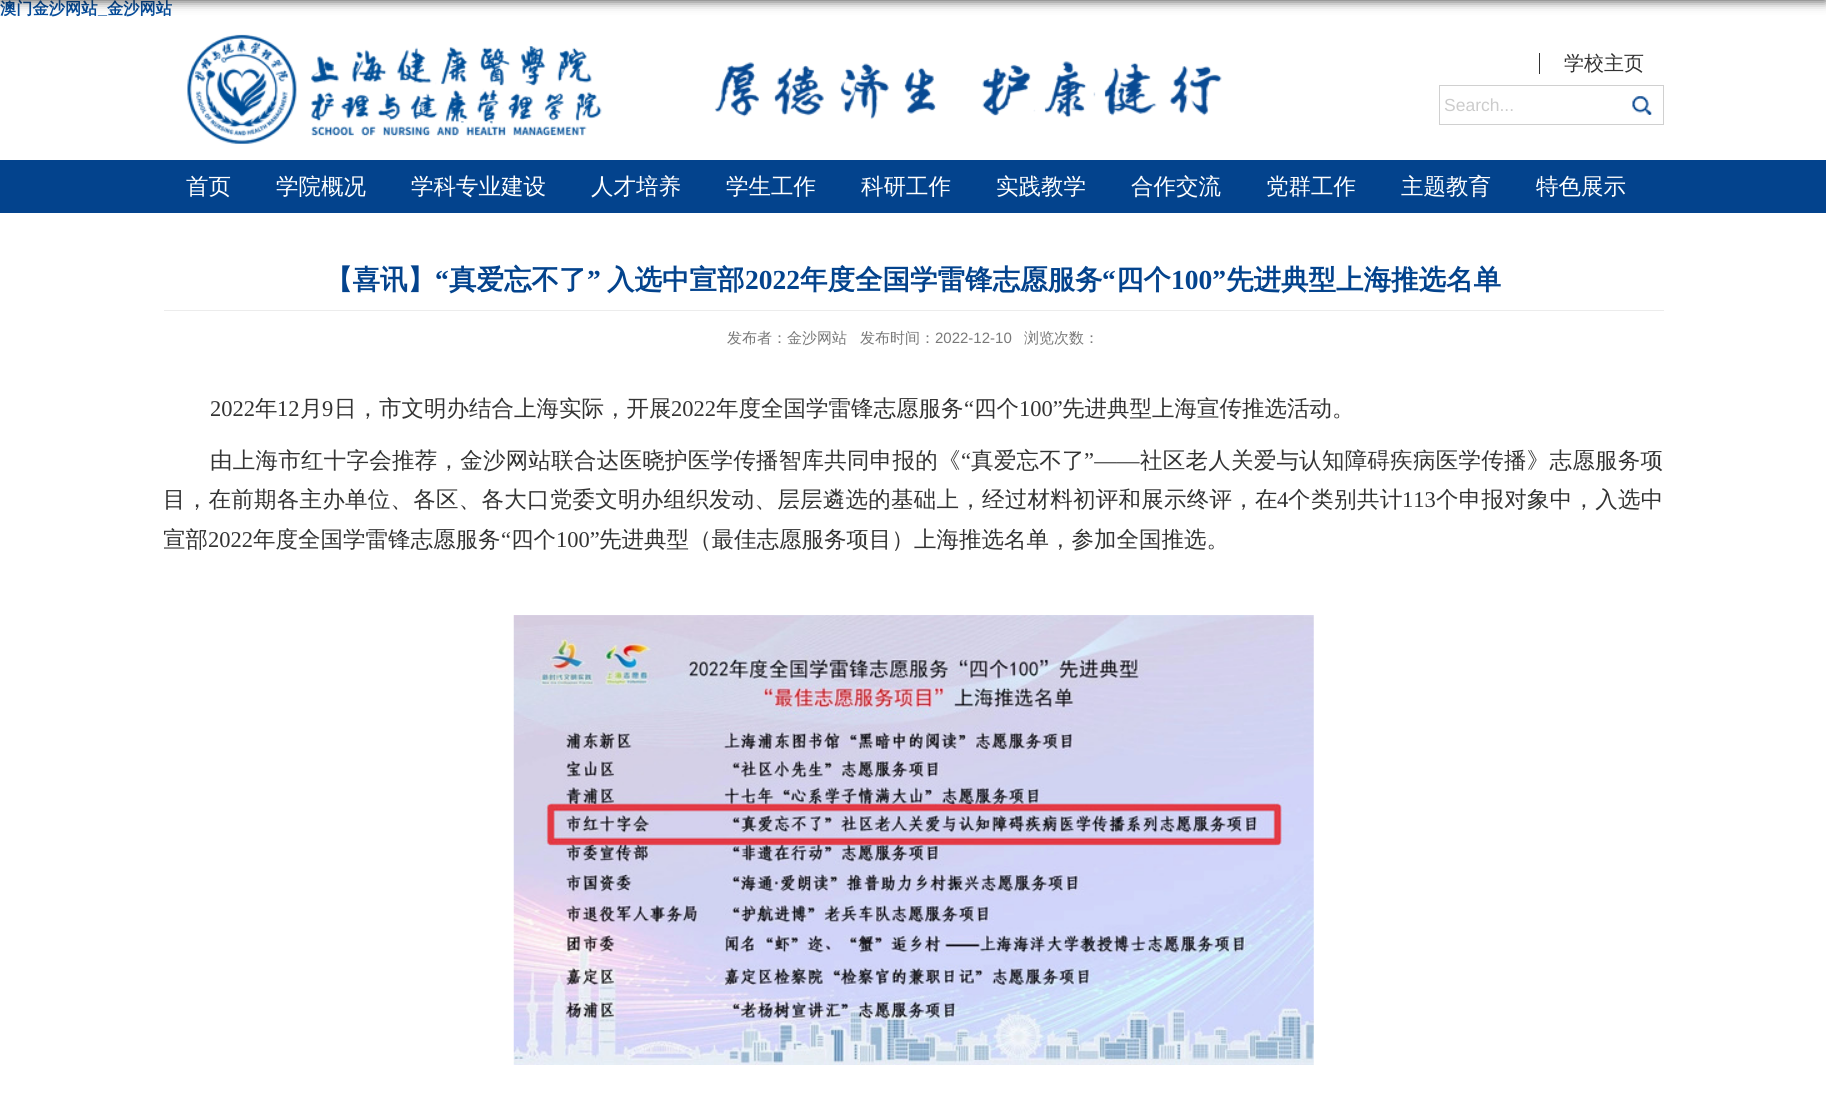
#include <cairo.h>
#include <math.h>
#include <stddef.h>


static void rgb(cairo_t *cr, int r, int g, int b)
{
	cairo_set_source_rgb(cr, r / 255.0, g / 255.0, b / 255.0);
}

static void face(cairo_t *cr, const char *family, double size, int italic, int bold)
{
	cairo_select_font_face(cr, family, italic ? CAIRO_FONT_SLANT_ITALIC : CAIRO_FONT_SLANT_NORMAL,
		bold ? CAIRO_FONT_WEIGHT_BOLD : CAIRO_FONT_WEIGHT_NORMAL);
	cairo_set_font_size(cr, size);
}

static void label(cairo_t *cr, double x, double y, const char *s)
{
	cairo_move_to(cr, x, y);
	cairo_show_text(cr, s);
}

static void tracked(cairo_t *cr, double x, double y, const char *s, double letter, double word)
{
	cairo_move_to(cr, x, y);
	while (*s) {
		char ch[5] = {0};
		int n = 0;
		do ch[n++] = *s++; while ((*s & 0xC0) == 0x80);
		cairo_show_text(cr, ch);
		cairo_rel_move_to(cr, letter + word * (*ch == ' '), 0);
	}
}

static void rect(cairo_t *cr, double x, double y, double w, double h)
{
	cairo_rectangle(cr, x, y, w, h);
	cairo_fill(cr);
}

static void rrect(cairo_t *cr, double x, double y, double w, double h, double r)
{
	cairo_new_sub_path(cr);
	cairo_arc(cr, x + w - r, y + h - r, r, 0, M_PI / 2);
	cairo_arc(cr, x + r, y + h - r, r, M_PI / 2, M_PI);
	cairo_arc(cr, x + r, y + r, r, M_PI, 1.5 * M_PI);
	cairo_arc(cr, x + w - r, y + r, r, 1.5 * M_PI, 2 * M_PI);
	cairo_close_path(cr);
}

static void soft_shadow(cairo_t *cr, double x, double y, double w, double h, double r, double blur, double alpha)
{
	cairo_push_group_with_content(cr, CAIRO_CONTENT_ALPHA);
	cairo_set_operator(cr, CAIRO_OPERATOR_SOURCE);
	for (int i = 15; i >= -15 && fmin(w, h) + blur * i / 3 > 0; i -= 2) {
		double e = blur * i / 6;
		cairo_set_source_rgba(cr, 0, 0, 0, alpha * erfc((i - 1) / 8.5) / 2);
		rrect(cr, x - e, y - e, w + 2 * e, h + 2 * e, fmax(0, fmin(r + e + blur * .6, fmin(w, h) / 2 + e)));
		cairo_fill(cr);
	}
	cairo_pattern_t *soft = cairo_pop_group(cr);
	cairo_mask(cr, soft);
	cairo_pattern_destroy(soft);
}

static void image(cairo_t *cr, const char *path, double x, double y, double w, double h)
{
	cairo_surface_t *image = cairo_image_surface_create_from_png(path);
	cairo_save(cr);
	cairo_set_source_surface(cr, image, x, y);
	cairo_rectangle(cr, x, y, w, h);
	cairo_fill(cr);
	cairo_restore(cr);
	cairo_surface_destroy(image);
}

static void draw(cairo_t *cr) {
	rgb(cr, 255, 255, 255);
	cairo_paint(cr);
	face(cr, "WenQuanYi Zen Hei", 16.25, 0, 1);
	rgb(cr, 5, 76, 154);
	label(cr, 0, 14, "澳门金沙网站");
	face(cr, "Liberation Sans", 16.25, 0, 1);
	label(cr, 98, 14, "_");
	face(cr, "WenQuanYi Zen Hei", 16.25, 0, 1);
	label(cr, 107, 14, "金沙网站");
	rgb(cr, 0, 0, 0);
	soft_shadow(cr, 0, -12, 1826, 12, 0, 6, 0.8);
	image(cr, "image0.png", 187, 34, 1035, 110);
	face(cr, "WenQuanYi Zen Hei Medium", 20, 0, 0);
	rgb(cr, 51, 51, 51);
	label(cr, 1564, 70, "学校主页");
	rect(cr, 1539, 53, 1, 21);
	cairo_rectangle(cr, 1439.5, 85.5, 224, 39);
	rgb(cr, 208, 208, 208);
	cairo_set_line_width(cr, 1);
	cairo_stroke(cr);
	face(cr, "Liberation Sans", 17.5, 0, 0);
	rgb(cr, 204, 204, 204);
	label(cr, 1444, 111, "Search...");
	image(cr, "image1.png", 1632, 96, 20, 19);
	rgb(cr, 3, 67, 141);
	rect(cr, 0, 160, 1826, 53);
	face(cr, "WenQuanYi Zen Hei Medium", 22.5, 0, 0);
	rgb(cr, 255, 255, 255);
	label(cr, 186, 194, "首页");
	label(cr, 276, 194, "学院概况");
	label(cr, 411, 194, "学科专业建设");
	label(cr, 591, 194, "人才培养");
	label(cr, 726, 194, "学生工作");
	label(cr, 861, 194, "科研工作");
	label(cr, 996, 194, "实践教学");
	label(cr, 1131, 194, "合作交流");
	label(cr, 1266, 194, "党群工作");
	label(cr, 1401, 194, "主题教育");
	label(cr, 1536, 194, "特色展示");
	face(cr, "WenQuanYi Zen Hei", 27.5, 0, 1);
	rgb(cr, 3, 67, 141);
	label(cr, 325, 289, "【喜讯】");
	face(cr, "Liberation Serif", 27.5, 0, 1);
	label(cr, 435, 289, "“");
	face(cr, "WenQuanYi Zen Hei", 27.5, 0, 1);
	label(cr, 449, 289, "真爱忘不了");
	face(cr, "Liberation Serif", 27.5, 0, 1);
	label(cr, 587, 289, "”");
	face(cr, "WenQuanYi Zen Hei", 27.5, 0, 1);
	label(cr, 607, 289, "入选中宣部");
	face(cr, "Liberation Serif", 27.5, 0, 1);
	label(cr, 745, 289, "2022");
	face(cr, "WenQuanYi Zen Hei", 27.5, 0, 1);
	label(cr, 800, 289, "年度全国学雷锋志愿服务");
	face(cr, "Liberation Serif", 27.5, 0, 1);
	label(cr, 1102, 289, "“");
	face(cr, "WenQuanYi Zen Hei", 27.5, 0, 1);
	label(cr, 1116, 289, "四个");
	face(cr, "Liberation Serif", 27.5, 0, 1);
	label(cr, 1171, 289, "100”");
	face(cr, "WenQuanYi Zen Hei", 27.5, 0, 1);
	label(cr, 1226, 289, "先进典型上海推选名单");
	rgb(cr, 236, 236, 236);
	rect(cr, 164, 310, 1500, 1);
	face(cr, "WenQuanYi Zen Hei Medium", 15, 0, 0);
	rgb(cr, 120, 120, 120);
	label(cr, 727, 343, "发布者：金沙网站");
	label(cr, 860, 343, "发布时间：");
	face(cr, "Liberation Sans", 15, 0, 0);
	label(cr, 935, 343, "2022-12-10");
	face(cr, "WenQuanYi Zen Hei Medium", 15, 0, 0);
	label(cr, 1024, 343, "浏览次数：");
	face(cr, "Liberation Serif", 22.5, 0, 0);
	rgb(cr, 51, 51, 51);
	label(cr, 210, 416, "2022");
	face(cr, "WenQuanYi Zen Hei Medium", 22.5, 0, 0);
	label(cr, 255, 416, "年");
	face(cr, "Liberation Serif", 22.5, 0, 0);
	label(cr, 277, 416, "12");
	face(cr, "WenQuanYi Zen Hei Medium", 22.5, 0, 0);
	label(cr, 300, 416, "月");
	face(cr, "Liberation Serif", 22.5, 0, 0);
	label(cr, 322, 416, "9");
	face(cr, "WenQuanYi Zen Hei Medium", 22.5, 0, 0);
	label(cr, 334, 416, "日，市文明办结合上海实际，开展");
	face(cr, "Liberation Serif", 22.5, 0, 0);
	label(cr, 671, 416, "2022");
	face(cr, "WenQuanYi Zen Hei Medium", 22.5, 0, 0);
	label(cr, 716, 416, "年度全国学雷锋志愿服务");
	face(cr, "Liberation Serif", 22.5, 0, 0);
	label(cr, 964, 416, "“");
	face(cr, "WenQuanYi Zen Hei Medium", 22.5, 0, 0);
	label(cr, 974, 416, "四个");
	face(cr, "Liberation Serif", 22.5, 0, 0);
	label(cr, 1019, 416, "100”");
	face(cr, "WenQuanYi Zen Hei Medium", 22.5, 0, 0);
	label(cr, 1062, 416, "先进典型上海宣传推选活动。");
	tracked(cr, 210, 468, "由上海市红十字会推荐，金沙网站联合达医晓护医学传播智库共同申报的《", 0.25, 0);
	face(cr, "Liberation Serif", 22.5, 0, 0);
	tracked(cr, 961, 468, "“", 0.25, 0);
	face(cr, "WenQuanYi Zen Hei Medium", 22.5, 0, 0);
	tracked(cr, 971, 468, "真爱忘不了", 0.25, 0);
	face(cr, "Liberation Serif", 22.5, 0, 0);
	tracked(cr, 1084, 468, "”——", 0.25, 0);
	face(cr, "WenQuanYi Zen Hei Medium", 22.5, 0, 0);
	tracked(cr, 1140, 468, "社区老人关爱与认知障碍疾病医学传播》志愿服务项", 0.25, 0);
	tracked(cr, 163, 507, "目，在前期各主办单位、各区、各大口党委文明办组织发动、层层遴选的基础上，经过材料初评和展示终评，在", 0.25, 0);
	face(cr, "Liberation Serif", 22.5, 0, 0);
	label(cr, 1277, 507, "4");
	face(cr, "WenQuanYi Zen Hei Medium", 22.5, 0, 0);
	tracked(cr, 1288, 507, "个类别共计", 0.5, 0);
	face(cr, "Liberation Serif", 22.5, 0, 0);
	label(cr, 1402, 507, "113");
	face(cr, "WenQuanYi Zen Hei Medium", 22.5, 0, 0);
	tracked(cr, 1436, 507, "个申报对象中，入选中", 0.25, 0);
	cairo_save(cr);
	cairo_rectangle(cr, 164, 378, 1500, 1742);
	cairo_clip(cr);
	label(cr, 163, 547, "宣部");
	cairo_restore(cr);
	face(cr, "Liberation Serif", 22.5, 0, 0);
	label(cr, 208, 547, "2022");
	face(cr, "WenQuanYi Zen Hei Medium", 22.5, 0, 0);
	label(cr, 253, 547, "年度全国学雷锋志愿服务");
	face(cr, "Liberation Serif", 22.5, 0, 0);
	label(cr, 501, 547, "“");
	face(cr, "WenQuanYi Zen Hei Medium", 22.5, 0, 0);
	label(cr, 511, 547, "四个");
	face(cr, "Liberation Serif", 22.5, 0, 0);
	label(cr, 556, 547, "100”");
	face(cr, "WenQuanYi Zen Hei Medium", 22.5, 0, 0);
	label(cr, 599, 547, "先进典型（最佳志愿服务项目）上海推选名单，参加全国推选。");
	image(cr, "image2.png", 513, 615, 801, 450);
}

int main(void) {
	cairo_surface_t *surface = cairo_image_surface_create(CAIRO_FORMAT_RGB24, 1826, 1104);
	cairo_t *cr = cairo_create(surface);
	cairo_font_options_t *options = cairo_font_options_create();
	cairo_font_options_set_hint_metrics(options, CAIRO_HINT_METRICS_OFF);
	cairo_font_options_set_hint_style(options, CAIRO_HINT_STYLE_NONE);
	cairo_set_font_options(cr, options);
	cairo_set_miter_limit(cr, 4);
	draw(cr);
	cairo_surface_write_to_png(surface, "render.png");
	cairo_font_options_destroy(options);
	cairo_destroy(cr);
	cairo_surface_destroy(surface);
	return 0;
}
